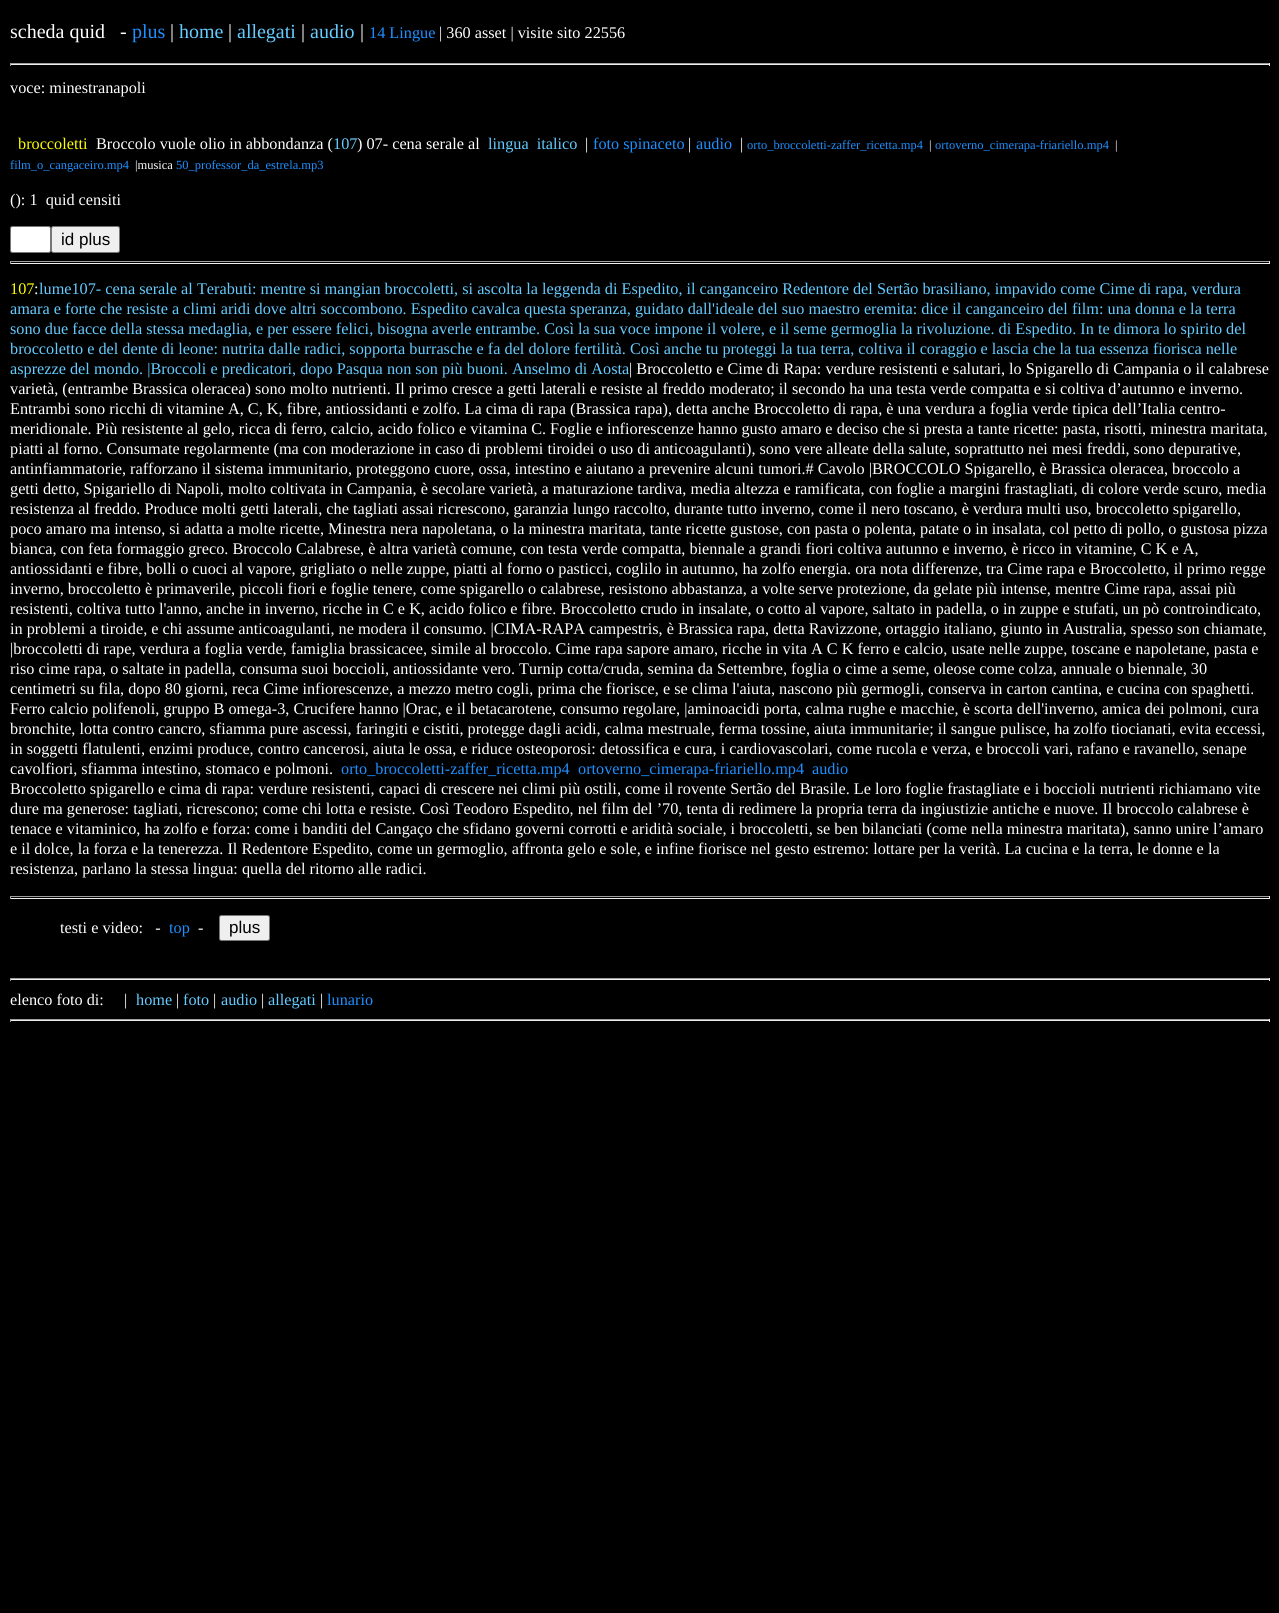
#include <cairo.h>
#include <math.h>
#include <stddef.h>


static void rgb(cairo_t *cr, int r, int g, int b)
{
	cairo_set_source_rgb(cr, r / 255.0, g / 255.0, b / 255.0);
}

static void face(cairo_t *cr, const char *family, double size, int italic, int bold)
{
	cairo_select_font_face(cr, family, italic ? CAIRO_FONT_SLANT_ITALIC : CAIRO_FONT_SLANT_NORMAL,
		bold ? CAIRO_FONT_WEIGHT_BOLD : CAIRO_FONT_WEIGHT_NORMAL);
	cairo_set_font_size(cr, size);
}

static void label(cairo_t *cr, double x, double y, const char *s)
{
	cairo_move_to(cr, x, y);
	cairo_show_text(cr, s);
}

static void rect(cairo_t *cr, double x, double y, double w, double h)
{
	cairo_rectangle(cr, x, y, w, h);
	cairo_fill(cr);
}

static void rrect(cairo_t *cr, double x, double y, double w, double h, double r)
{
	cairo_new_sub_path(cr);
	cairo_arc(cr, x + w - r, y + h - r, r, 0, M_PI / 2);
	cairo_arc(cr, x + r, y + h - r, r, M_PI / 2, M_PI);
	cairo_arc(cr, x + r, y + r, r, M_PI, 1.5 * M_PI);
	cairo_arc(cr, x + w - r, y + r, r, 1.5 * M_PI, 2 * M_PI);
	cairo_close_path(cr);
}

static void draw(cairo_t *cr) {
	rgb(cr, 0, 0, 0);
	cairo_paint(cr);
	face(cr, "Liberation Serif", 20, 0, 0);
	rgb(cr, 255, 255, 255);
	label(cr, 10, 38, "scheda quid  -");
	rgb(cr, 30, 144, 255);
	label(cr, 132, 38, "plus");
	rgb(cr, 255, 255, 255);
	label(cr, 170, 38, "|");
	rgb(cr, 102, 204, 255);
	label(cr, 179, 38, "home");
	rgb(cr, 255, 255, 255);
	label(cr, 228, 38, "|");
	rgb(cr, 102, 204, 255);
	label(cr, 237, 38, "allegati");
	rgb(cr, 255, 255, 255);
	label(cr, 301, 38, "|");
	rgb(cr, 102, 204, 255);
	label(cr, 310, 38, "audio");
	rgb(cr, 255, 255, 255);
	label(cr, 360, 38, "|");
	face(cr, "Liberation Serif", 16.25, 0, 0);
	rgb(cr, 30, 144, 255);
	label(cr, 369, 38, "14 Lingue");
	rgb(cr, 255, 255, 255);
	label(cr, 439, 38, "| 360 asset | visite sito 22556");
	rgb(cr, 159, 159, 159);
	rect(cr, 10, 63, 1260, 1);
	rgb(cr, 238, 238, 238);
	rect(cr, 1269, 63, 1, 3);
	rect(cr, 10, 64, 1260, 1);
	rgb(cr, 159, 159, 159);
	rect(cr, 10, 63, 1, 3);
	rgb(cr, 255, 255, 255);
	label(cr, 10, 93, "voce: minestranapoli");
	rgb(cr, 255, 255, 0);
	label(cr, 18, 149, "broccoletti");
	rgb(cr, 255, 255, 255);
	label(cr, 96, 149, "Broccolo vuole olio in abbondanza (");
	rgb(cr, 102, 204, 255);
	label(cr, 333, 149, "107");
	rgb(cr, 255, 255, 255);
	label(cr, 357, 149, ") 07- cena serale al");
	rgb(cr, 102, 204, 255);
	label(cr, 488, 149, "lingua italico");
	rgb(cr, 255, 255, 255);
	label(cr, 585, 149, "|");
	rgb(cr, 30, 144, 255);
	label(cr, 593, 149, "foto spinaceto");
	rgb(cr, 255, 255, 255);
	label(cr, 688, 149, "|");
	rgb(cr, 30, 144, 255);
	label(cr, 696, 149, "audio");
	rgb(cr, 255, 255, 255);
	label(cr, 740, 149, "|");
	face(cr, "Liberation Serif", 12.5, 0, 0);
	rgb(cr, 30, 144, 255);
	label(cr, 747, 149, "orto_broccoletti-zaffer_ricetta.mp4");
	rgb(cr, 255, 255, 255);
	label(cr, 929, 149, "|");
	rgb(cr, 30, 144, 255);
	label(cr, 935, 149, "ortoverno_cimerapa-friariello.mp4");
	rgb(cr, 255, 255, 255);
	label(cr, 1115, 149, "|");
	rgb(cr, 30, 144, 255);
	label(cr, 10, 169, "film_o_cangaceiro.mp4");
	rgb(cr, 255, 255, 255);
	label(cr, 135, 169, "|musica");
	rgb(cr, 30, 144, 255);
	label(cr, 176, 169, "50_professor_da_estrela.mp3");
	face(cr, "Liberation Serif", 16.25, 0, 0);
	rgb(cr, 255, 255, 255);
	label(cr, 10, 205, "(): 1 quid censiti");
	rrect(cr, 10.5, 226.5, 40, 26, 2);
	cairo_fill_preserve(cr);
	rgb(cr, 118, 118, 118);
	cairo_set_line_width(cr, 1);
	cairo_stroke(cr);
	rgb(cr, 239, 239, 239);
	rrect(cr, 51.5, 226.5, 68, 26, 2);
	cairo_fill_preserve(cr);
	rgb(cr, 118, 118, 118);
	cairo_stroke(cr);
	face(cr, "Liberation Sans", 17, 0, 0);
	rgb(cr, 0, 0, 0);
	label(cr, 61, 245, "id plus");
	rgb(cr, 159, 159, 159);
	rect(cr, 10, 261, 1260, 1);
	rgb(cr, 238, 238, 238);
	rect(cr, 1269, 261, 1, 3);
	rect(cr, 10, 263, 1260, 1);
	rgb(cr, 159, 159, 159);
	rect(cr, 10, 261, 1, 3);
	face(cr, "Liberation Serif", 16.25, 0, 0);
	rgb(cr, 255, 255, 0);
	label(cr, 10, 294, "107");
	rgb(cr, 255, 255, 255);
	label(cr, 34, 294, ":");
	rgb(cr, 102, 204, 255);
	label(cr, 39, 294, "lume107- cena serale al Terabuti: mentre si mangian broccoletti, si ascolta la leggenda di Espedito, il canganceiro Redentore del Sertão brasiliano, impavido come Cime di rapa, verdura");
	label(cr, 10, 314, "amara e forte che resiste a climi aridi dove altri soccombono. Espedito cavalca questa speranza, guidato dall'ideale del suo maestro eremita: dice il canganceiro del film: una donna e la terra");
	label(cr, 10, 334, "sono due facce della stessa medaglia, e per essere felici, bisogna averle entrambe. Così la sua voce impone il volere, e il seme germoglia la rivoluzione. di Espedito. In te dimora lo spirito del");
	label(cr, 10, 354, "broccoletto e del dente di leone: nutrita dalle radici, sopporta burrasche e fa del dolore fertilità. Così anche tu proteggi la tua terra, coltiva il coraggio e lascia che la tua essenza fiorisca nelle");
	label(cr, 10, 374, "asprezze del mondo. |Broccoli e predicatori, dopo Pasqua non son più buoni. Anselmo di Aosta");
	rgb(cr, 255, 255, 255);
	label(cr, 629, 374, "| Broccoletto e Cime di Rapa: verdure resistenti e salutari, lo Spigarello di Campania o il calabrese");
	label(cr, 10, 394, "varietà, (entrambe Brassica oleracea) sono molto nutrienti. Il primo cresce a getti laterali e resiste al freddo moderato; il secondo ha una testa verde compatta e si coltiva d’autunno e inverno.");
	label(cr, 10, 414, "Entrambi sono ricchi di vitamine A, C, K, fibre, antiossidanti e zolfo. La cima di rapa (Brassica rapa), detta anche Broccoletto di rapa, è una verdura a foglia verde tipica dell’Italia centro-");
	label(cr, 10, 434, "meridionale. Più resistente al gelo, ricca di ferro, calcio, acido folico e vitamina C. Foglie e infiorescenze hanno gusto amaro e deciso che si presta a tante ricette: pasta, risotti, minestra maritata,");
	label(cr, 10, 454, "piatti al forno. Consumate regolarmente (ma con moderazione in caso di problemi tiroidei o uso di anticoagulanti), sono vere alleate della salute, soprattutto nei mesi freddi, sono depurative,");
	label(cr, 10, 474, "antinfiammatorie, rafforzano il sistema immunitario, proteggono cuore, ossa, intestino e aiutano a prevenire alcuni tumori.# Cavolo |BROCCOLO Spigarello, è Brassica oleracea, broccolo a");
	label(cr, 10, 494, "getti detto, Spigariello di Napoli, molto coltivata in Campania, è secolare varietà, a maturazione tardiva, media altezza e ramificata, con foglie a margini frastagliati, di colore verde scuro, media");
	label(cr, 10, 514, "resistenza al freddo. Produce molti getti laterali, che tagliati assai ricrescono, garanzia lungo raccolto, durante tutto inverno, come il nero toscano, è verdura multi uso, broccoletto spigarello,");
	label(cr, 10, 534, "poco amaro ma intenso, si adatta a molte ricette, Minestra nera napoletana, o la minestra maritata, tante ricette gustose, con pasta o polenta, patate o in insalata, col petto di pollo, o gustosa pizza");
	label(cr, 10, 554, "bianca, con feta formaggio greco. Broccolo Calabrese, è altra varietà comune, con testa verde compatta, biennale a grandi fiori coltiva autunno e inverno, è ricco in vitamine, C K e A,");
	label(cr, 10, 574, "antiossidanti e fibre, bolli o cuoci al vapore, grigliato o nelle zuppe, piatti al forno o pasticci, coglilo in autunno, ha zolfo energia. ora nota differenze, tra Cime rapa e Broccoletto, il primo regge");
	label(cr, 10, 594, "inverno, broccoletto è primaverile, piccoli fiori e foglie tenere, come spigarello o calabrese, resistono abbastanza, a volte serve protezione, da gelate più intense, mentre Cime rapa, assai più");
	label(cr, 10, 614, "resistenti, coltiva tutto l'anno, anche in inverno, ricche in C e K, acido folico e fibre. Broccoletto crudo in insalate, o cotto al vapore, saltato in padella, o in zuppe e stufati, un pò controindicato,");
	label(cr, 10, 634, "in problemi a tiroide, e chi assume anticoagulanti, ne modera il consumo. |CIMA-RAPA campestris, è Brassica rapa, detta Ravizzone, ortaggio italiano, giunto in Australia, spesso son chiamate,");
	label(cr, 10, 654, "|broccoletti di rape, verdura a foglia verde, famiglia brassicacee, simile al broccolo. Cime rapa sapore amaro, ricche in vita A C K ferro e calcio, usate nelle zuppe, toscane e napoletane, pasta e");
	label(cr, 10, 674, "riso cime rapa, o saltate in padella, consuma suoi boccioli, antiossidante vero. Turnip cotta/cruda, semina da Settembre, foglia o cime a seme, oleose come colza, annuale o biennale, 30");
	label(cr, 10, 694, "centimetri su fila, dopo 80 giorni, reca Cime infiorescenze, a mezzo metro cogli, prima che fiorisce, e se clima l'aiuta, nascono più germogli, conserva in carton cantina, e cucina con spaghetti.");
	label(cr, 10, 714, "Ferro calcio polifenoli, gruppo B omega-3, Crucifere hanno |Orac, e il betacarotene, consumo regolare, |aminoacidi porta, calma rughe e macchie, è scorta dell'inverno, amica dei polmoni, cura");
	label(cr, 10, 734, "bronchite, lotta contro cancro, sfiamma pure ascessi, faringiti e cistiti, protegge dagli acidi, calma mestruale, ferma tossine, aiuta immunitarie; il sangue pulisce, ha zolfo tiocianati, evita eccessi,");
	label(cr, 10, 754, "in soggetti flatulenti, enzimi produce, contro cancerosi, aiuta le ossa, e riduce osteoporosi: detossifica e cura, i cardiovascolari, come rucola e verza, e broccoli vari, rafano e ravanello, senape");
	label(cr, 10, 774, "cavolfiori, sfiamma intestino, stomaco e polmoni.");
	rgb(cr, 30, 144, 255);
	label(cr, 341, 774, "orto_broccoletti-zaffer_ricetta.mp4");
	label(cr, 578, 774, "ortoverno_cimerapa-friariello.mp4");
	label(cr, 812, 774, "audio");
	rgb(cr, 255, 255, 255);
	label(cr, 10, 794, "Broccoletto spigarello e cima di rapa: verdure resistenti, capaci di crescere nei climi più ostili, come il rovente Sertão del Brasile. Le loro foglie frastagliate e i boccioli nutrienti richiamano vite");
	label(cr, 10, 814, "dure ma generose: tagliati, ricrescono; come chi lotta e resiste. Così Teodoro Espedito, nel film del ’70, tenta di redimere la propria terra da ingiustizie antiche e nuove. Il broccolo calabrese è");
	label(cr, 10, 834, "tenace e vitaminico, ha zolfo e forza: come i banditi del Cangaço che sfidano governi corrotti e aridità sociale, i broccoletti, se ben bilanciati (come nella minestra maritata), sanno unire l’amaro");
	label(cr, 10, 854, "e il dolce, la forza e la tenerezza. Il Redentore Espedito, come un germoglio, affronta gelo e sole, e infine fiorisce nel gesto estremo: lottare per la verità. La cucina e la terra, le donne e la");
	label(cr, 10, 874, "resistenza, parlano la stessa lingua: quella del ritorno alle radici.");
	rgb(cr, 159, 159, 159);
	rect(cr, 10, 896, 1260, 1);
	rgb(cr, 238, 238, 238);
	rect(cr, 1269, 896, 1, 3);
	rect(cr, 10, 898, 1260, 1);
	rgb(cr, 159, 159, 159);
	rect(cr, 10, 896, 1, 3);
	rgb(cr, 255, 255, 255);
	label(cr, 60, 933, "testi e video:  -");
	rgb(cr, 30, 144, 255);
	label(cr, 169, 933, "top");
	rgb(cr, 255, 255, 255);
	label(cr, 198, 933, "-");
	rgb(cr, 239, 239, 239);
	rrect(cr, 219.5, 915.5, 50, 25, 2);
	cairo_fill_preserve(cr);
	rgb(cr, 118, 118, 118);
	cairo_stroke(cr);
	face(cr, "Liberation Sans", 17, 0, 0);
	rgb(cr, 0, 0, 0);
	label(cr, 229, 933, "plus");
	rgb(cr, 159, 159, 159);
	rect(cr, 10, 978, 1260, 1);
	rgb(cr, 238, 238, 238);
	rect(cr, 1269, 978, 1, 3);
	rect(cr, 10, 979, 1260, 1);
	rgb(cr, 159, 159, 159);
	rect(cr, 10, 978, 1, 3);
	face(cr, "Liberation Serif", 16.25, 0, 0);
	rgb(cr, 255, 255, 255);
	label(cr, 10, 1005, "elenco foto di:");
	label(cr, 124, 1005, "|");
	rgb(cr, 102, 204, 255);
	label(cr, 136, 1005, "home");
	rgb(cr, 255, 255, 255);
	label(cr, 176, 1005, "|");
	rgb(cr, 102, 204, 255);
	label(cr, 183, 1005, "foto");
	rgb(cr, 255, 255, 255);
	label(cr, 213, 1005, "|");
	rgb(cr, 102, 204, 255);
	label(cr, 221, 1005, "audio");
	rgb(cr, 255, 255, 255);
	label(cr, 261, 1005, "|");
	rgb(cr, 102, 204, 255);
	label(cr, 268, 1005, "allegati");
	rgb(cr, 255, 255, 255);
	label(cr, 320, 1005, "|");
	rgb(cr, 30, 144, 255);
	label(cr, 327, 1005, "lunario");
	rgb(cr, 159, 159, 159);
	rect(cr, 10, 1019, 1260, 1);
	rgb(cr, 238, 238, 238);
	rect(cr, 1269, 1019, 1, 3);
	rect(cr, 10, 1020, 1260, 1);
	rgb(cr, 159, 159, 159);
	rect(cr, 10, 1019, 1, 3);
}

int main(void) {
	cairo_surface_t *surface = cairo_image_surface_create(CAIRO_FORMAT_RGB24, 1279, 1613);
	cairo_t *cr = cairo_create(surface);
	cairo_font_options_t *options = cairo_font_options_create();
	cairo_font_options_set_hint_metrics(options, CAIRO_HINT_METRICS_OFF);
	cairo_font_options_set_hint_style(options, CAIRO_HINT_STYLE_NONE);
	cairo_set_font_options(cr, options);
	cairo_set_miter_limit(cr, 4);
	draw(cr);
	cairo_surface_write_to_png(surface, "render.png");
	cairo_font_options_destroy(options);
	cairo_destroy(cr);
	cairo_surface_destroy(surface);
	return 0;
}
